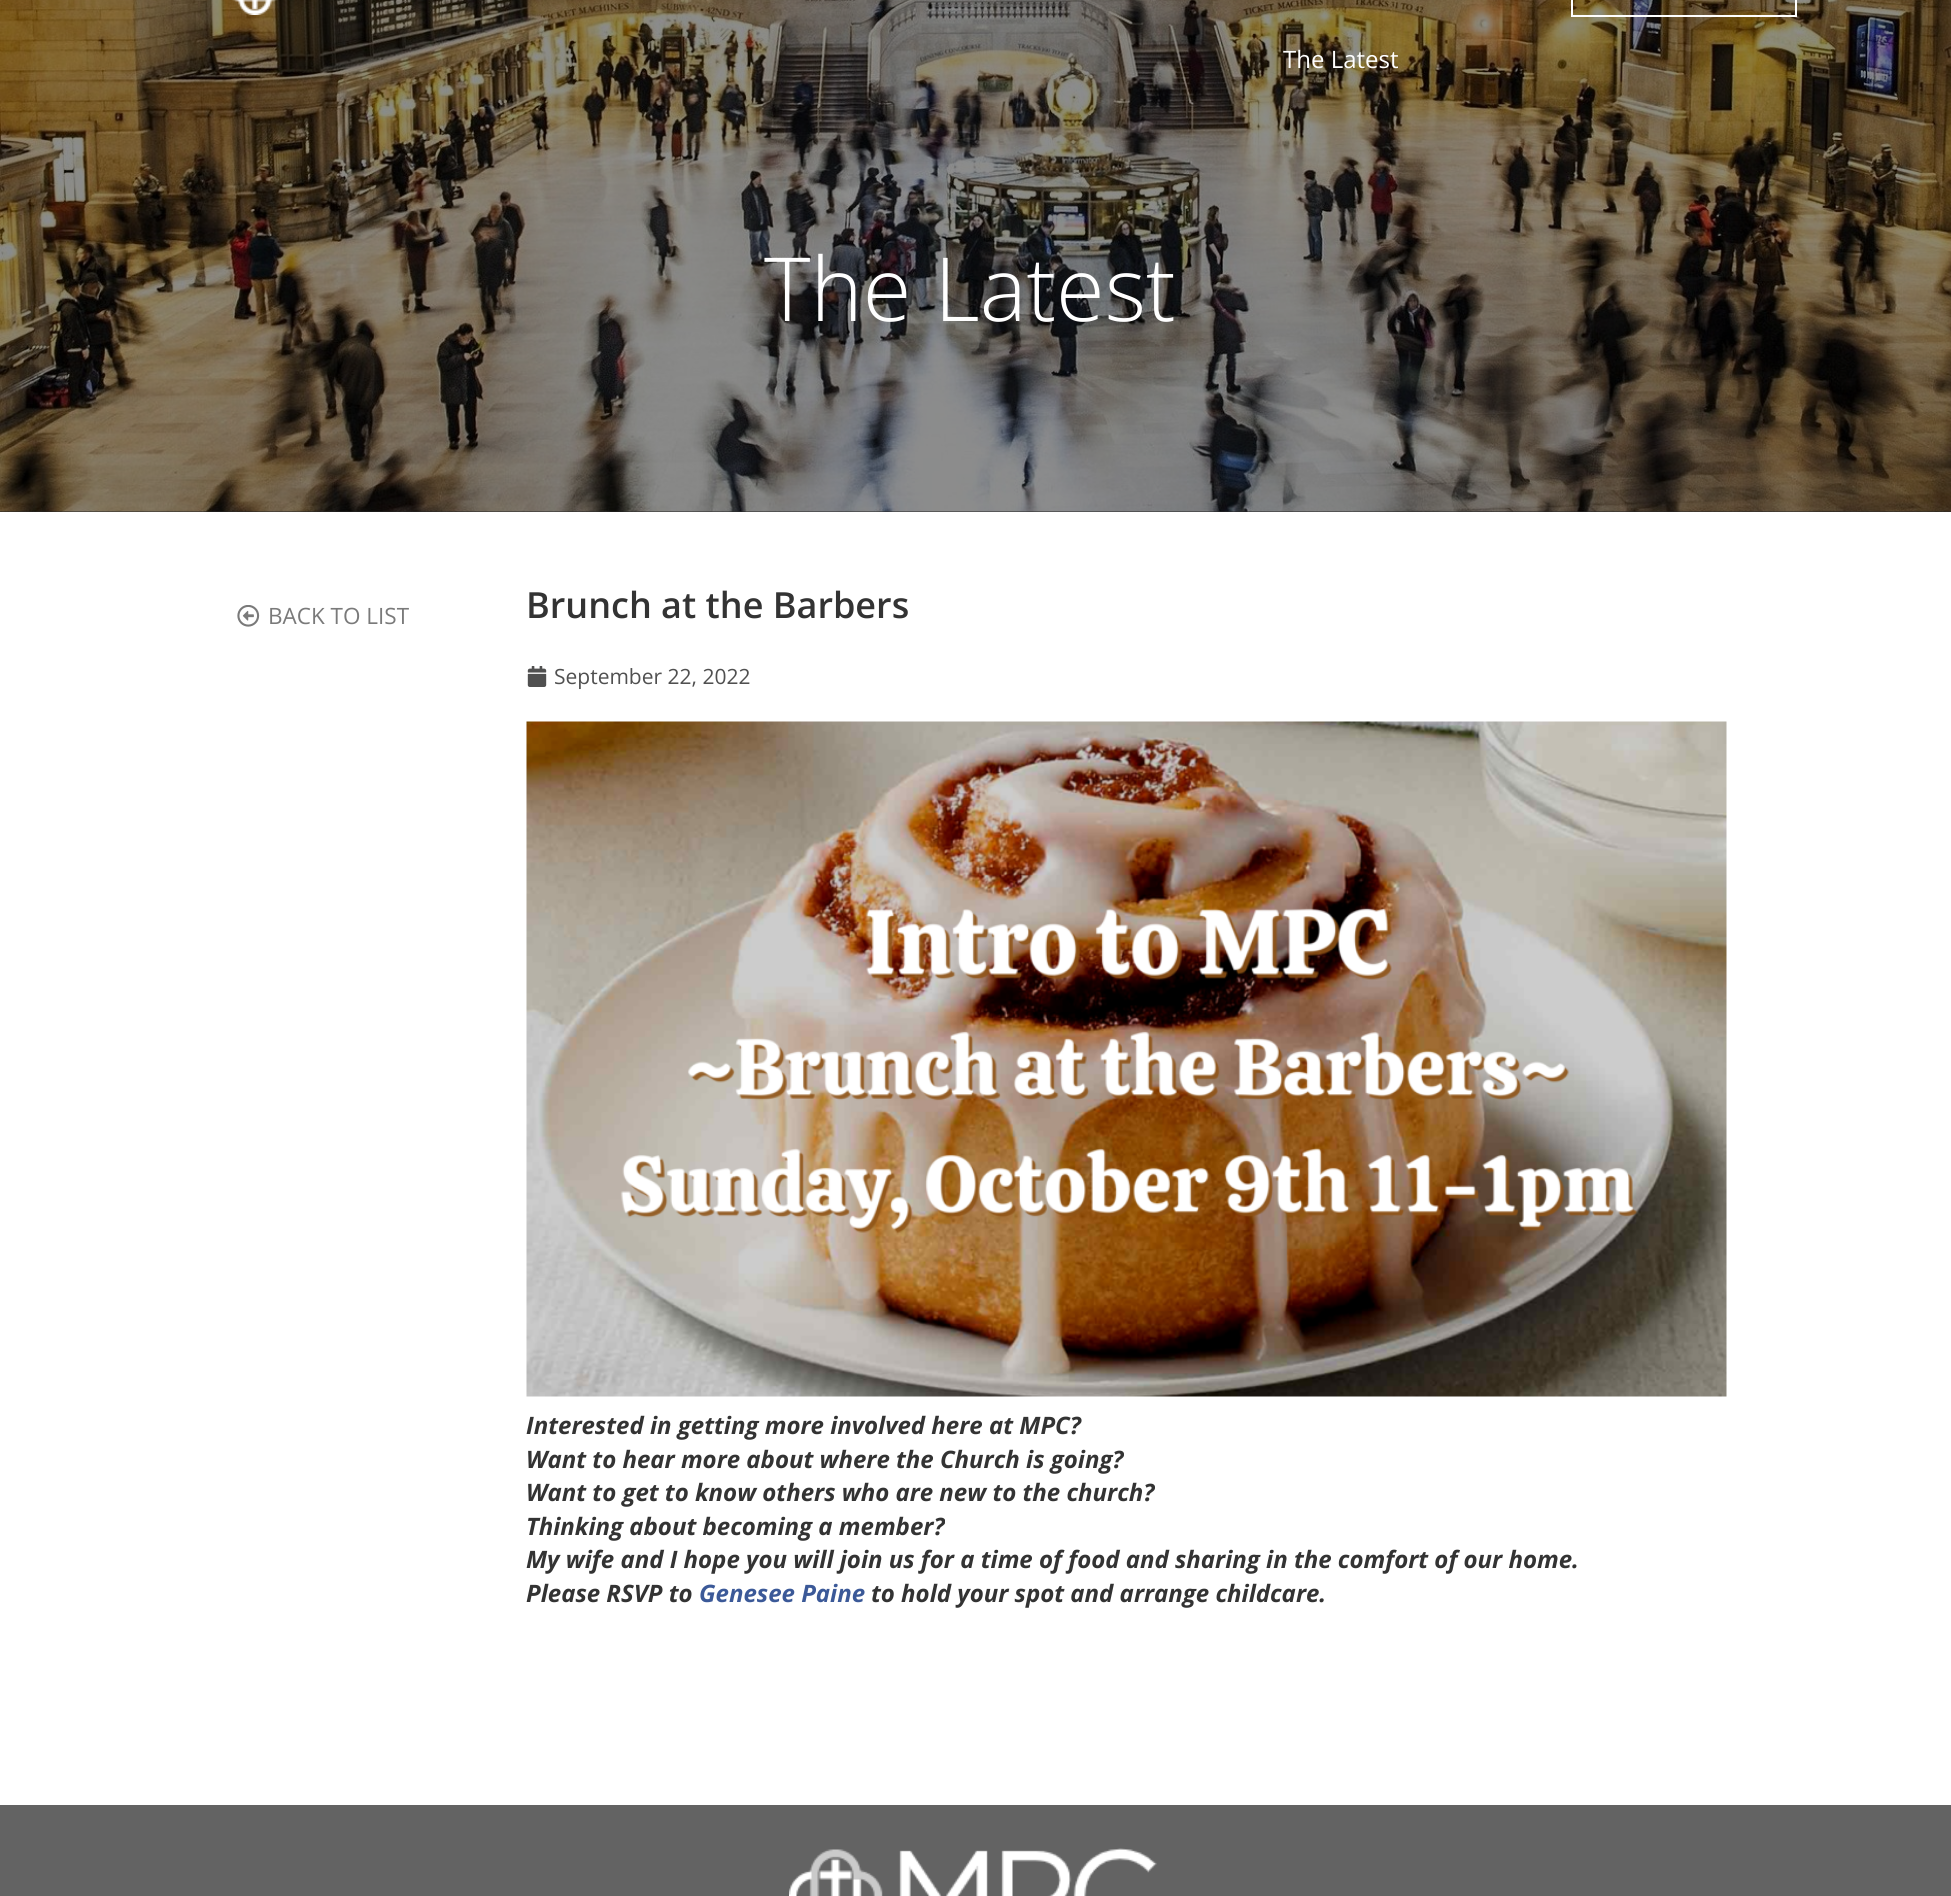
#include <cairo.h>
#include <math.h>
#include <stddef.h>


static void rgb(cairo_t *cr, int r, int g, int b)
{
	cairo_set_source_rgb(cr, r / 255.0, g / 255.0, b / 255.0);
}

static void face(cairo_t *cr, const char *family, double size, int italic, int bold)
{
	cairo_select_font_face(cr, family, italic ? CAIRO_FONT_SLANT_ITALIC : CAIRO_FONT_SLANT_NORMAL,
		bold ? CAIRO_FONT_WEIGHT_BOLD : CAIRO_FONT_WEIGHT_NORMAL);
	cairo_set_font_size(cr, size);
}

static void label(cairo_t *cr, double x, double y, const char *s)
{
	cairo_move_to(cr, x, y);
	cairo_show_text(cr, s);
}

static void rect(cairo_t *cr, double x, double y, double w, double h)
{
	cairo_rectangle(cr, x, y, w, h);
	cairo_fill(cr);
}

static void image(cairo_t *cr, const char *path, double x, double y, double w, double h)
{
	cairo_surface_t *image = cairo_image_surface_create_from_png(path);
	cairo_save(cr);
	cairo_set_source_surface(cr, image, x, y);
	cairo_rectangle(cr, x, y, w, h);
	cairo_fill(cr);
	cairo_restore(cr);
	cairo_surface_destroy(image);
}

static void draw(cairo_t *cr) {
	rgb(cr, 255, 255, 255);
	cairo_paint(cr);
	rgb(cr, 38, 38, 38);
	rect(cr, 0, 511, 1951, 1);
	image(cr, "image0.png", 0, 0, 1951, 512);
	image(cr, "image1.png", 232, 0, 46, 15);
	cairo_rectangle(cr, 1572, -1, 224, 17);
	rgb(cr, 255, 255, 255);
	cairo_stroke(cr);
	face(cr, "Open Sans", 24, 0, 0);
	label(cr, 1283, 68, "The Latest");
	face(cr, "Open Sans Light", 88.5, 0, 0);
	label(cr, 764, 321, "The Latest");
	image(cr, "image2.png", 237, 605, 23, 22);
	face(cr, "Open Sans", 22.5, 0, 0);
	rgb(cr, 122, 122, 122);
	label(cr, 268, 624, "BACK TO LIST");
	face(cr, "Open Sans SemiBold", 36, 0, 0);
	rgb(cr, 51, 51, 51);
	label(cr, 526, 618, "Brunch at the Barbers");
	image(cr, "image3.png", 527, 666, 20, 21);
	face(cr, "Open Sans", 21, 0, 0);
	rgb(cr, 80, 80, 80);
	label(cr, 554, 684, "September 22, 2022");
	image(cr, "image4.png", 526, 721, 1201, 676);
	face(cr, "Open Sans", 24, 1, 1);
	rgb(cr, 51, 51, 51);
	label(cr, 526, 1434, "Interested in getting more involved here at MPC?");
	label(cr, 526, 1468, "Want to hear more about where the Church is going?");
	label(cr, 526, 1501, "Want to get to know others who are new to the church?");
	label(cr, 526, 1535, "Thinking about becoming a member?");
	label(cr, 526, 1568, "My wife and I hope you will join us for a time of food and sharing in the comfort of our home.");
	label(cr, 526, 1602, "Please RSVP to");
	rgb(cr, 59, 89, 152);
	label(cr, 699, 1602, "Genesee Paine");
	rgb(cr, 51, 51, 51);
	label(cr, 871, 1602, "to hold your spot and arrange childcare.");
	rgb(cr, 99, 99, 99);
	rect(cr, 0, 1805, 1951, 91);
	image(cr, "image5.png", 789, 1848, 368, 48);
}

int main(void) {
	cairo_surface_t *surface = cairo_image_surface_create(CAIRO_FORMAT_RGB24, 1951, 1896);
	cairo_t *cr = cairo_create(surface);
	cairo_font_options_t *options = cairo_font_options_create();
	cairo_font_options_set_hint_metrics(options, CAIRO_HINT_METRICS_OFF);
	cairo_font_options_set_hint_style(options, CAIRO_HINT_STYLE_NONE);
	cairo_set_font_options(cr, options);
	cairo_set_miter_limit(cr, 4);
	draw(cr);
	cairo_surface_write_to_png(surface, "render.png");
	cairo_font_options_destroy(options);
	cairo_destroy(cr);
	cairo_surface_destroy(surface);
	return 0;
}
